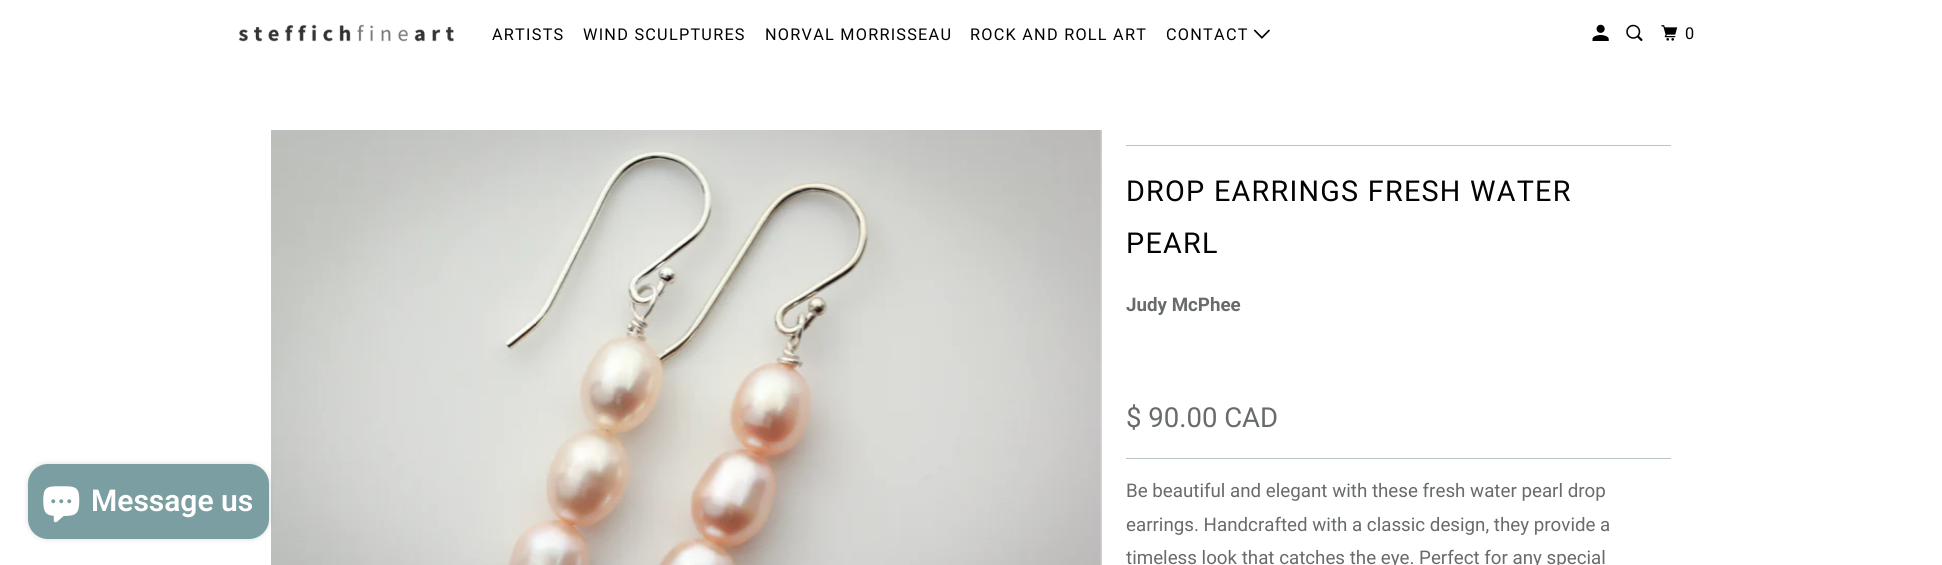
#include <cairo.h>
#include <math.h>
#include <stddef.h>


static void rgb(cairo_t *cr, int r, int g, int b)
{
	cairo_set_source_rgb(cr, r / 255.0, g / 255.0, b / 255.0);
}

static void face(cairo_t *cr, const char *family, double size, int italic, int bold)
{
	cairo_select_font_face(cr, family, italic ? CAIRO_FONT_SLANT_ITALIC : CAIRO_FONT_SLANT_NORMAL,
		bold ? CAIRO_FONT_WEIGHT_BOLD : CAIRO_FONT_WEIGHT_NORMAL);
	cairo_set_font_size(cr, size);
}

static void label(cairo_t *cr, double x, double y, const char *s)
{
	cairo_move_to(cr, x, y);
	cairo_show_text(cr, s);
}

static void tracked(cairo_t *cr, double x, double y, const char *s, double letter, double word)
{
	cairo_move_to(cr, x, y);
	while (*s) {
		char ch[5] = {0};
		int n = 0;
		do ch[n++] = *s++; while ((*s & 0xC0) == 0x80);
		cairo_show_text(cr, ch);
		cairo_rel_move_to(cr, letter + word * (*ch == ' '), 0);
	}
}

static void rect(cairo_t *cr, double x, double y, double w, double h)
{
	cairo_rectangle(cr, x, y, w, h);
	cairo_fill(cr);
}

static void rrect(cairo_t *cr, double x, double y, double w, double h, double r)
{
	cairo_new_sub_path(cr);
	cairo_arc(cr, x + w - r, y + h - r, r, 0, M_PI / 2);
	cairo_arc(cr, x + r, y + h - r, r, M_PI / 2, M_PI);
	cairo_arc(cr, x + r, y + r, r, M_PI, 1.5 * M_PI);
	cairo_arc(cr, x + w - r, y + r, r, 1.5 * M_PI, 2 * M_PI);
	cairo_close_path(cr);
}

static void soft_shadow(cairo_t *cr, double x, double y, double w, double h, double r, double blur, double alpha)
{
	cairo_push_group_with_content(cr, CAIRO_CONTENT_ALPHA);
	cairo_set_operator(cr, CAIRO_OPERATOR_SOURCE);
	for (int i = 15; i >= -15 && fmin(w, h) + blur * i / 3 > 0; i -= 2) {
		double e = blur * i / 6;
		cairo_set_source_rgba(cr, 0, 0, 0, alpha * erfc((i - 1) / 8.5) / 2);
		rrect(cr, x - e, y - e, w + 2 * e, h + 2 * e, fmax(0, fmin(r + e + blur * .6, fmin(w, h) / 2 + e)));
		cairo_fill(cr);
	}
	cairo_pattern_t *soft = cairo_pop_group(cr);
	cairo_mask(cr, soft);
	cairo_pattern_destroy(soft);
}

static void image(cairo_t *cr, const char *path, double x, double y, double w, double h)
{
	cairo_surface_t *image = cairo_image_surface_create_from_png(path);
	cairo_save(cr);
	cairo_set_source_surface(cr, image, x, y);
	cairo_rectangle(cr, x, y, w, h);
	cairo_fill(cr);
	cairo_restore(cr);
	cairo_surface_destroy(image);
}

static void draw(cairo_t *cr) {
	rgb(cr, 255, 255, 255);
	cairo_paint(cr);
	image(cr, "image6.png", 271, 130, 831, 435);
	rgb(cr, 0, 0, 0);
	soft_shadow(cr, 28, 464, 241, 75, 20, 3, 0.15);
	rgb(cr, 122, 158, 161);
	rrect(cr, 28, 464, 241, 75, 20);
	cairo_fill(cr);
	image(cr, "image0.png", 43, 486, 37, 37);
	face(cr, "Roboto SemiBold", 30, 0, 0);
	rgb(cr, 255, 255, 255);
	label(cr, 91, 511, "Message us");
	image(cr, "image1.png", 238, 24, 216, 18);
	face(cr, "Roboto", 16.25, 0, 0);
	rgb(cr, 1, 2, 2);
	tracked(cr, 492, 40, "ARTISTS", 1.25, 0);
	tracked(cr, 583, 40, "WIND SCULPTURES", 1.25, 0);
	tracked(cr, 765, 40, "NORVAL MORRISSEAU", 1.25, 0);
	tracked(cr, 970, 40, "ROCK AND ROLL ART", 1.25, 0);
	tracked(cr, 1166, 40, "CONTACT", 1.25, 0);
	image(cr, "image2.png", 1253, 29, 17, 10);
	image(cr, "image3.png", 1592, 24, 17, 17);
	image(cr, "image4.png", 1626, 24, 17, 17);
	image(cr, "image5.png", 1661, 25, 17, 16);
	tracked(cr, 1685, 39, "0", 1.25, 0);
	rgb(cr, 184, 198, 198);
	rect(cr, 1126, 145, 545, 1);
	face(cr, "Roboto", 28.75, 0, 0);
	rgb(cr, 1, 2, 2);
	tracked(cr, 1126, 201, "DROP EARRINGS FRESH WATER", 1.25, 0);
	tracked(cr, 1126, 253, "PEARL", 1.25, 0);
	face(cr, "Roboto", 18.75, 0, 1);
	rgb(cr, 103, 107, 108);
	label(cr, 1126, 311, "Judy McPhee");
	face(cr, "Roboto", 27.5, 0, 0);
	label(cr, 1126, 427, "$ 90.00 CAD");
	rgb(cr, 184, 198, 198);
	rect(cr, 1126, 458, 545, 1);
	face(cr, "Roboto", 18.75, 0, 0);
	rgb(cr, 103, 107, 108);
	label(cr, 1126, 497, "Be beautiful and elegant with these fresh water pearl drop");
	label(cr, 1126, 531, "earrings. Handcrafted with a classic design, they provide a");
	label(cr, 1126, 564, "timeless look that catches the eye. Perfect for any special");
}

int main(void) {
	cairo_surface_t *surface = cairo_image_surface_create(CAIRO_FORMAT_RGB24, 1942, 565);
	cairo_t *cr = cairo_create(surface);
	cairo_font_options_t *options = cairo_font_options_create();
	cairo_font_options_set_hint_metrics(options, CAIRO_HINT_METRICS_OFF);
	cairo_font_options_set_hint_style(options, CAIRO_HINT_STYLE_NONE);
	cairo_set_font_options(cr, options);
	cairo_set_miter_limit(cr, 4);
	draw(cr);
	cairo_surface_write_to_png(surface, "render.png");
	cairo_font_options_destroy(options);
	cairo_destroy(cr);
	cairo_surface_destroy(surface);
	return 0;
}
